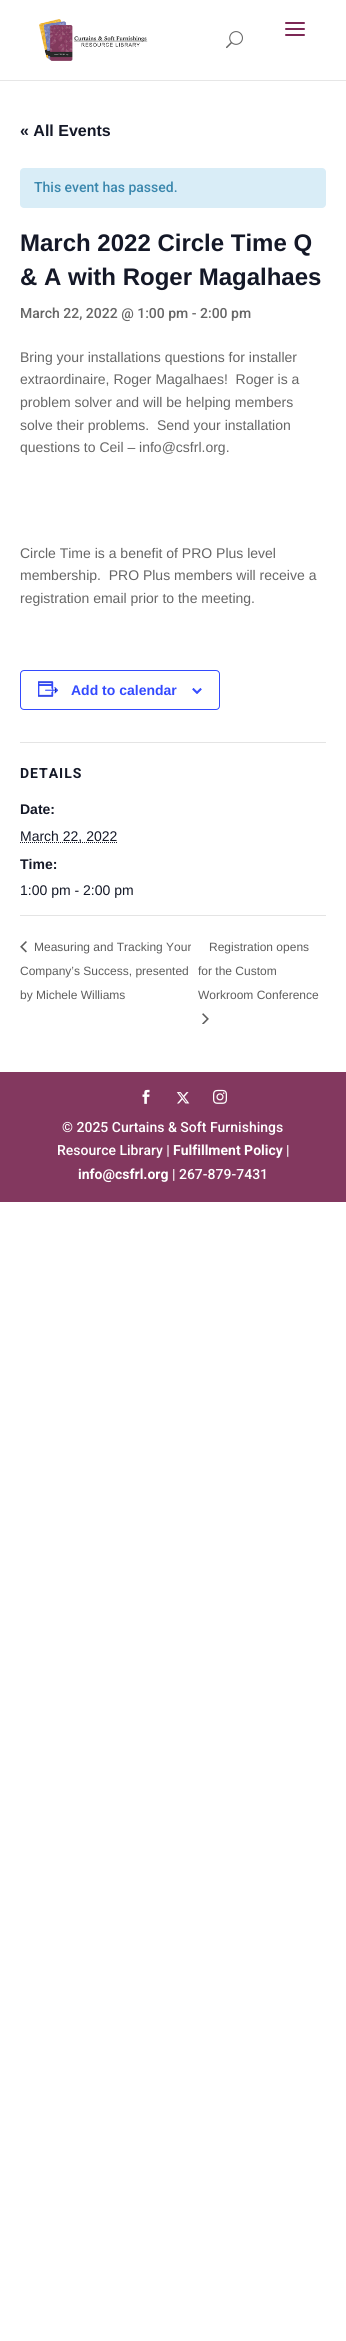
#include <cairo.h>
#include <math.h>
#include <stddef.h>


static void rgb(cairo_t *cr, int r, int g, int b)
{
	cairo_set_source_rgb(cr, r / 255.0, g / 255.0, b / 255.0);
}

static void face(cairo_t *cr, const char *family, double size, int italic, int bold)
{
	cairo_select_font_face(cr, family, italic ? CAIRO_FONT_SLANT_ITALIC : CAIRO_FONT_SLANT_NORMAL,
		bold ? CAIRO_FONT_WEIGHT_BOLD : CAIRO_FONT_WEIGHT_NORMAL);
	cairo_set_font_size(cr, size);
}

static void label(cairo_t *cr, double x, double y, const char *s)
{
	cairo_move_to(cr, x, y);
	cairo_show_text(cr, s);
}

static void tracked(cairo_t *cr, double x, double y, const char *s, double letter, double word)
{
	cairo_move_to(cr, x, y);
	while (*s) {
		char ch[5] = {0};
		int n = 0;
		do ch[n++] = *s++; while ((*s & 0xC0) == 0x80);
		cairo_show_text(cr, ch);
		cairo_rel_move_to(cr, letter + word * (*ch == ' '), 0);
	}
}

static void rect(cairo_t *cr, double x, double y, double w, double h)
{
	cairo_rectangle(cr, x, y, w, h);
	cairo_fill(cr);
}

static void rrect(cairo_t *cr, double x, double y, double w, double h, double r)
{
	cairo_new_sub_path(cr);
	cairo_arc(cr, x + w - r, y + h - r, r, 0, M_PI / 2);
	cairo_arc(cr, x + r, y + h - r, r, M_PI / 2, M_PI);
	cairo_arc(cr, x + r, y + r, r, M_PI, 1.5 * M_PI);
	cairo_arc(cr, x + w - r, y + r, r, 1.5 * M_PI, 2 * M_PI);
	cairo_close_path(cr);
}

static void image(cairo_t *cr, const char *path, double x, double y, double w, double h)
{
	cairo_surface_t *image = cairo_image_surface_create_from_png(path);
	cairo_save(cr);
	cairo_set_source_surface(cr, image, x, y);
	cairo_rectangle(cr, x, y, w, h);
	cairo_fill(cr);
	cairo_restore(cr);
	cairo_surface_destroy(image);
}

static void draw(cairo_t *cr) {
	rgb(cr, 255, 255, 255);
	cairo_paint(cr);
	rgb(cr, 230, 230, 230);
	rect(cr, 0, 80, 346, 1);
	image(cr, "image0.png", 39, 19, 109, 42);
	image(cr, "image1.png", 285, 22, 20, 14);
	image(cr, "image2.png", 226, 31, 17, 18);
	face(cr, "Liberation Sans", 16, 0, 1);
	rgb(cr, 20, 24, 39);
	label(cr, 20, 136, "« All Events");
	rgb(cr, 217, 237, 247);
	rrect(cr, 20, 168, 306, 40, 4);
	cairo_fill(cr);
	face(cr, "Roboto Medium", 14, 0, 0);
	rgb(cr, 58, 135, 173);
	label(cr, 34, 192, "This event has passed.");
	face(cr, "Liberation Sans", 24, 0, 1);
	rgb(cr, 20, 24, 39);
	label(cr, 20, 251, "March 2022 Circle Time Q");
	label(cr, 20, 285, "& A with Roger Magalhaes");
	face(cr, "Roboto Medium", 14, 0, 0);
	rgb(cr, 102, 102, 102);
	label(cr, 20, 318, "March 22, 2022 @ 1:00 pm - 2:00 pm");
	face(cr, "Liberation Sans", 14, 0, 0);
	label(cr, 20, 362, "Bring your installations questions for installer");
	label(cr, 20, 384, "extraordinaire, Roger Magalhaes!  Roger is a");
	label(cr, 20, 407, "problem solver and will be helping members");
	label(cr, 20, 430, "solve their problems.  Send your installation");
	label(cr, 20, 452, "questions to Ceil – info@csfrl.org.");
	label(cr, 20, 558, "Circle Time is a benefit of PRO Plus level");
	label(cr, 20, 580, "membership.  PRO Plus members will receive a");
	label(cr, 20, 603, "registration email prior to the meeting.");
	rrect(cr, 20.5, 670.5, 199, 39, 3.5);
	rgb(cr, 51, 74, 255);
	cairo_set_line_width(cr, 1);
	cairo_stroke(cr);
	image(cr, "image3.png", 38, 681, 21, 16);
	face(cr, "Liberation Sans", 14, 0, 1);
	label(cr, 71, 695, "Add to calendar");
	image(cr, "image4.png", 192, 688, 10, 6);
	rgb(cr, 228, 228, 228);
	rect(cr, 20, 742, 306, 1);
	face(cr, "Roboto", 14, 0, 1);
	rgb(cr, 20, 24, 39);
	tracked(cr, 20, 778, "DETAILS", 1, 0);
	face(cr, "Liberation Sans", 14, 0, 1);
	label(cr, 20, 814, "Date:");
	cairo_new_path(cr);
	cairo_move_to(cr, 20, 842.5);
	cairo_line_to(cr, 117.5, 842.5);
	cairo_set_dash(cr, (double[]){1, 1}, 2, 0);
	cairo_stroke(cr);
	face(cr, "Liberation Sans", 14, 0, 0);
	label(cr, 20, 841, "March 22, 2022");
	face(cr, "Liberation Sans", 14, 0, 1);
	label(cr, 20, 869, "Time:");
	face(cr, "Liberation Sans", 14, 0, 0);
	label(cr, 20, 895, "1:00 pm - 2:00 pm");
	rgb(cr, 228, 228, 228);
	rect(cr, 20, 915, 306, 1);
	image(cr, "image5.png", 20, 941, 7, 12);
	face(cr, "Liberation Sans", 12, 0, 0);
	rgb(cr, 93, 93, 93);
	label(cr, 34, 951, "Measuring and Tracking Your");
	label(cr, 20, 975, "Company’s Success, presented");
	label(cr, 20, 999, "by Michele Williams");
	label(cr, 209, 951, "Registration opens");
	label(cr, 198, 975, "for the Custom");
	label(cr, 198, 999, "Workroom Conference");
	image(cr, "image6.png", 202, 1013, 7, 11);
	rgb(cr, 131, 56, 95);
	rect(cr, 0, 1072, 346, 130);
	image(cr, "image7.png", 142, 1089, 8, 15);
	image(cr, "image8.png", 176, 1092, 14, 12);
	image(cr, "image9.png", 213, 1089, 14, 15);
	face(cr, "Roboto Medium", 14, 0, 0);
	rgb(cr, 255, 255, 255);
	label(cr, 62, 1132, "© 2025 Curtains & Soft Furnishings");
	label(cr, 57, 1155, "Resource Library |");
	face(cr, "Roboto", 14, 0, 1);
	label(cr, 173, 1155, "Fulfillment Policy");
	face(cr, "Roboto Medium", 14, 0, 0);
	label(cr, 286, 1155, "|");
	face(cr, "Roboto", 14, 0, 1);
	label(cr, 78, 1179, "info@csfrl.org");
	face(cr, "Roboto Medium", 14, 0, 0);
	label(cr, 172, 1179, "| 267-879-7431");
}

int main(void) {
	cairo_surface_t *surface = cairo_image_surface_create(CAIRO_FORMAT_RGB24, 346, 2341);
	cairo_t *cr = cairo_create(surface);
	cairo_font_options_t *options = cairo_font_options_create();
	cairo_font_options_set_hint_metrics(options, CAIRO_HINT_METRICS_OFF);
	cairo_font_options_set_hint_style(options, CAIRO_HINT_STYLE_NONE);
	cairo_set_font_options(cr, options);
	cairo_set_miter_limit(cr, 4);
	draw(cr);
	cairo_surface_write_to_png(surface, "render.png");
	cairo_font_options_destroy(options);
	cairo_destroy(cr);
	cairo_surface_destroy(surface);
	return 0;
}
